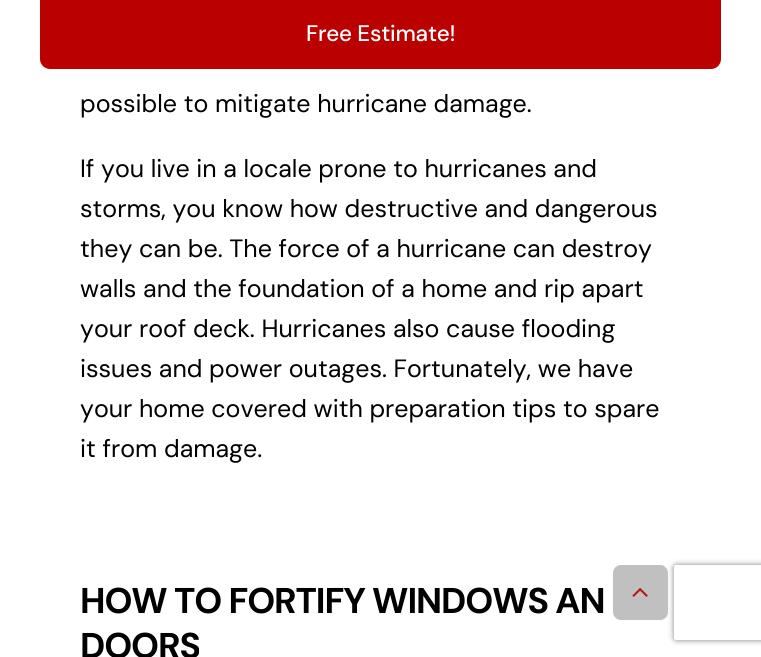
#include <cairo.h>
#include <math.h>
#include <stddef.h>


static void rgb(cairo_t *cr, int r, int g, int b)
{
	cairo_set_source_rgb(cr, r / 255.0, g / 255.0, b / 255.0);
}

static void face(cairo_t *cr, const char *family, double size, int italic, int bold)
{
	cairo_select_font_face(cr, family, italic ? CAIRO_FONT_SLANT_ITALIC : CAIRO_FONT_SLANT_NORMAL,
		bold ? CAIRO_FONT_WEIGHT_BOLD : CAIRO_FONT_WEIGHT_NORMAL);
	cairo_set_font_size(cr, size);
}

static void label(cairo_t *cr, double x, double y, const char *s)
{
	cairo_move_to(cr, x, y);
	cairo_show_text(cr, s);
}

static void tracked(cairo_t *cr, double x, double y, const char *s, double letter, double word)
{
	cairo_move_to(cr, x, y);
	while (*s) {
		char ch[5] = {0};
		int n = 0;
		do ch[n++] = *s++; while ((*s & 0xC0) == 0x80);
		cairo_show_text(cr, ch);
		cairo_rel_move_to(cr, letter + word * (*ch == ' '), 0);
	}
}

static void rrect(cairo_t *cr, double x, double y, double w, double h, double r)
{
	cairo_new_sub_path(cr);
	cairo_arc(cr, x + w - r, y + h - r, r, 0, M_PI / 2);
	cairo_arc(cr, x + r, y + h - r, r, M_PI / 2, M_PI);
	cairo_arc(cr, x + r, y + r, r, M_PI, 1.5 * M_PI);
	cairo_arc(cr, x + w - r, y + r, r, 1.5 * M_PI, 2 * M_PI);
	cairo_close_path(cr);
}

static void soft_shadow(cairo_t *cr, double x, double y, double w, double h, double r, double blur, double alpha)
{
	cairo_push_group_with_content(cr, CAIRO_CONTENT_ALPHA);
	cairo_set_operator(cr, CAIRO_OPERATOR_SOURCE);
	for (int i = 15; i >= -15 && fmin(w, h) + blur * i / 3 > 0; i -= 2) {
		double e = blur * i / 6;
		cairo_set_source_rgba(cr, 0, 0, 0, alpha * erfc((i - 1) / 8.5) / 2);
		rrect(cr, x - e, y - e, w + 2 * e, h + 2 * e, fmax(0, fmin(r + e + blur * .6, fmin(w, h) / 2 + e)));
		cairo_fill(cr);
	}
	cairo_pattern_t *soft = cairo_pop_group(cr);
	cairo_mask(cr, soft);
	cairo_pattern_destroy(soft);
}

static void image(cairo_t *cr, const char *path, double x, double y, double w, double h)
{
	cairo_surface_t *image = cairo_image_surface_create_from_png(path);
	cairo_save(cr);
	cairo_set_source_surface(cr, image, x, y);
	cairo_rectangle(cr, x, y, w, h);
	cairo_fill(cr);
	cairo_restore(cr);
	cairo_surface_destroy(image);
}

static void draw(cairo_t *cr) {
	rgb(cr, 255, 255, 255);
	cairo_paint(cr);
	rgb(cr, 187, 0, 0);
	cairo_new_path(cr);
	cairo_move_to(cr, 40, 0);
	cairo_line_to(cr, 721, 0);
	cairo_line_to(cr, 721, 59);
	cairo_curve_to(cr, 721, 64.5, 716.5, 69, 711, 69);
	cairo_line_to(cr, 50, 69);
	cairo_curve_to(cr, 44.5, 69, 40, 64.5, 40, 59);
	cairo_close_path(cr);
	cairo_fill(cr);
	face(cr, "DM Sans Medium", 22.5, 0, 0);
	rgb(cr, 255, 255, 255);
	tracked(cr, 306, 41, "Free Estimate!", -0.25, 0);
	face(cr, "DM Sans", 25, 0, 0);
	rgb(cr, 0, 0, 0);
	label(cr, 80, 112, "possible to mitigate hurricane damage.");
	label(cr, 80, 177, "If you live in a locale prone to hurricanes and");
	label(cr, 80, 217, "storms, you know how destructive and dangerous");
	label(cr, 80, 257, "they can be. The force of a hurricane can destroy");
	label(cr, 80, 297, "walls and the foundation of a home and rip apart");
	label(cr, 80, 337, "your roof deck. Hurricanes also cause flooding");
	label(cr, 80, 377, "issues and power outages. Fortunately, we have");
	label(cr, 80, 417, "your home covered with preparation tips to spare");
	label(cr, 80, 457, "it from damage.");
	face(cr, "DM Sans", 35.75, 0, 1);
	tracked(cr, 80, 613, "HOW TO FORTIFY WINDOWS AN", -1.1, 0);
	tracked(cr, 80, 658, "DOORS", -1.1, 0);
	cairo_save(cr);
	cairo_set_fill_rule(cr, CAIRO_FILL_RULE_EVEN_ODD);
	cairo_new_path(cr);
	cairo_move_to(cr, 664, 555);
	cairo_line_to(cr, 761, 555);
	cairo_line_to(cr, 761, 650);
	cairo_line_to(cr, 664, 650);
	cairo_close_path(cr);
	cairo_move_to(cr, 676.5, 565);
	cairo_line_to(cr, 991.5, 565);
	cairo_curve_to(cr, 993, 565, 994, 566, 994, 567.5);
	cairo_line_to(cr, 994, 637.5);
	cairo_curve_to(cr, 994, 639, 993, 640, 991.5, 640);
	cairo_line_to(cr, 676.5, 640);
	cairo_curve_to(cr, 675, 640, 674, 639, 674, 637.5);
	cairo_line_to(cr, 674, 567.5);
	cairo_curve_to(cr, 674, 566, 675, 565, 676.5, 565);
	cairo_close_path(cr);
	cairo_clip(cr);
	rgb(cr, 128, 128, 128);
	soft_shadow(cr, 674, 565, 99, 75, 2.5, 3, 1);
	cairo_restore(cr);
	cairo_set_source_rgba(cr, 0.729, 0.729, 0.729, 0.9);
	rrect(cr, 613, 565, 55, 55, 8);
	cairo_fill(cr);
	image(cr, "image0.png", 632, 588, 16, 9);
}

int main(void) {
	cairo_surface_t *surface = cairo_image_surface_create(CAIRO_FORMAT_RGB24, 761, 657);
	cairo_t *cr = cairo_create(surface);
	cairo_font_options_t *options = cairo_font_options_create();
	cairo_font_options_set_hint_metrics(options, CAIRO_HINT_METRICS_OFF);
	cairo_font_options_set_hint_style(options, CAIRO_HINT_STYLE_NONE);
	cairo_set_font_options(cr, options);
	cairo_set_miter_limit(cr, 4);
	draw(cr);
	cairo_surface_write_to_png(surface, "render.png");
	cairo_font_options_destroy(options);
	cairo_destroy(cr);
	cairo_surface_destroy(surface);
	return 0;
}
